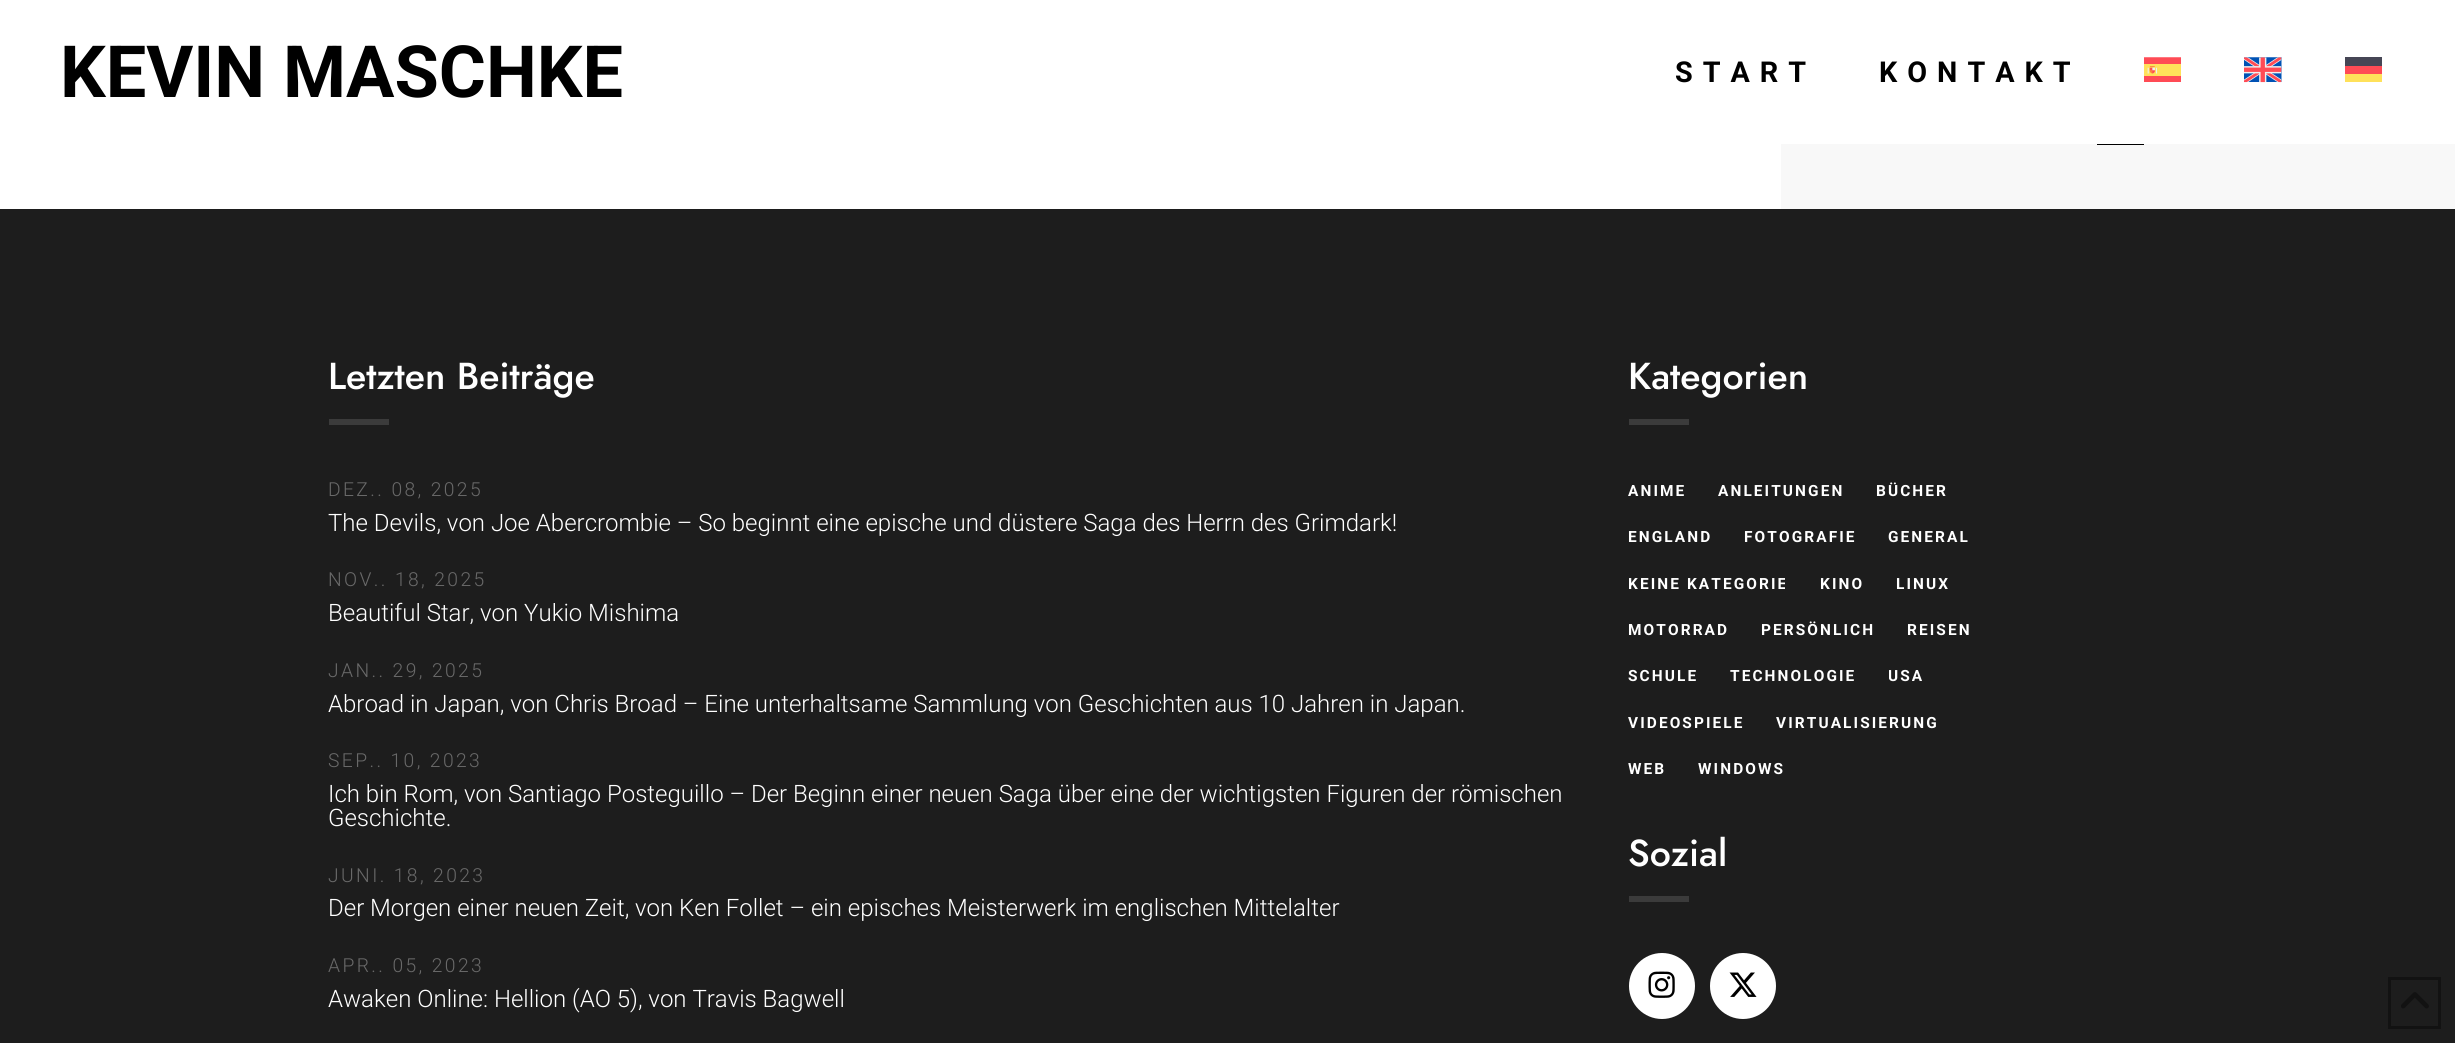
#include <cairo.h>
#include <math.h>
#include <stddef.h>


static void rgb(cairo_t *cr, int r, int g, int b)
{
	cairo_set_source_rgb(cr, r / 255.0, g / 255.0, b / 255.0);
}

static void face(cairo_t *cr, const char *family, double size, int italic, int bold)
{
	cairo_select_font_face(cr, family, italic ? CAIRO_FONT_SLANT_ITALIC : CAIRO_FONT_SLANT_NORMAL,
		bold ? CAIRO_FONT_WEIGHT_BOLD : CAIRO_FONT_WEIGHT_NORMAL);
	cairo_set_font_size(cr, size);
}

static void label(cairo_t *cr, double x, double y, const char *s)
{
	cairo_move_to(cr, x, y);
	cairo_show_text(cr, s);
}

static void tracked(cairo_t *cr, double x, double y, const char *s, double letter, double word)
{
	cairo_move_to(cr, x, y);
	while (*s) {
		char ch[5] = {0};
		int n = 0;
		do ch[n++] = *s++; while ((*s & 0xC0) == 0x80);
		cairo_show_text(cr, ch);
		cairo_rel_move_to(cr, letter + word * (*ch == ' '), 0);
	}
}

static void rect(cairo_t *cr, double x, double y, double w, double h)
{
	cairo_rectangle(cr, x, y, w, h);
	cairo_fill(cr);
}

static void image(cairo_t *cr, const char *path, double x, double y, double w, double h)
{
	cairo_surface_t *image = cairo_image_surface_create_from_png(path);
	cairo_save(cr);
	cairo_set_source_surface(cr, image, x, y);
	cairo_rectangle(cr, x, y, w, h);
	cairo_fill(cr);
	cairo_restore(cr);
	cairo_surface_destroy(image);
}

static void draw(cairo_t *cr) {
	rgb(cr, 248, 248, 248);
	cairo_paint(cr);
	rgb(cr, 255, 255, 255);
	rect(cr, 0, 0, 2455, 144);
	face(cr, "Roboto", 72, 0, 1);
	rgb(cr, 0, 0, 0);
	label(cr, 60, 97, "KEVIN MASCHKE");
	face(cr, "Roboto", 28.75, 0, 1);
	tracked(cr, 1675, 82, "START", 10, 0);
	tracked(cr, 1879, 82, "KONTAKT", 10, 0);
	image(cr, "image0.png", 2144, 57, 37, 25);
	image(cr, "image1.png", 2244, 57, 38, 26);
	rgb(cr, 70, 70, 85);
	rect(cr, 2345, 57, 37, 9);
	rgb(cr, 255, 75, 85);
	rect(cr, 2345, 66, 37, 8);
	rgb(cr, 255, 225, 90);
	rect(cr, 2345, 74, 37, 8);
	rgb(cr, 255, 255, 255);
	rect(cr, 0, 144, 1781, 65);
	rgb(cr, 0, 0, 0);
	rect(cr, 2097, 144, 47, 1);
	rgb(cr, 29, 29, 29);
	rect(cr, 0, 209, 2455, 834);
	face(cr, "Jost Medium", 37.5, 0, 0);
	rgb(cr, 255, 255, 255);
	label(cr, 328, 389, "Letzten Beiträge");
	rgb(cr, 59, 59, 59);
	rect(cr, 329, 419, 60, 6);
	face(cr, "Roboto Light", 19.25, 0, 0);
	rgb(cr, 105, 105, 105);
	tracked(cr, 328, 496, "DEZ.. 08, 2025", 2.4, 0);
	face(cr, "Roboto Light", 24, 0, 0);
	rgb(cr, 255, 255, 255);
	label(cr, 328, 531, "The Devils, von Joe Abercrombie – So beginnt eine epische und düstere Saga des Herrn des Grimdark!");
	face(cr, "Roboto Light", 19.25, 0, 0);
	rgb(cr, 105, 105, 105);
	tracked(cr, 328, 586, "NOV.. 18, 2025", 2.4, 0);
	face(cr, "Roboto Light", 24, 0, 0);
	rgb(cr, 255, 255, 255);
	label(cr, 328, 621, "Beautiful Star, von Yukio Mishima");
	face(cr, "Roboto Light", 19.25, 0, 0);
	rgb(cr, 105, 105, 105);
	tracked(cr, 328, 677, "JAN.. 29, 2025", 2.4, 0);
	face(cr, "Roboto Light", 24, 0, 0);
	rgb(cr, 255, 255, 255);
	label(cr, 328, 712, "Abroad in Japan, von Chris Broad – Eine unterhaltsame Sammlung von Geschichten aus 10 Jahren in Japan.");
	face(cr, "Roboto Light", 19.25, 0, 0);
	rgb(cr, 105, 105, 105);
	tracked(cr, 328, 767, "SEP.. 10, 2023", 2.4, 0);
	face(cr, "Roboto Light", 24, 0, 0);
	rgb(cr, 255, 255, 255);
	label(cr, 328, 802, "Ich bin Rom, von Santiago Posteguillo – Der Beginn einer neuen Saga über eine der wichtigsten Figuren der römischen");
	label(cr, 328, 826, "Geschichte.");
	face(cr, "Roboto Light", 19.25, 0, 0);
	rgb(cr, 105, 105, 105);
	tracked(cr, 328, 882, "JUNI. 18, 2023", 2.4, 0);
	face(cr, "Roboto Light", 24, 0, 0);
	rgb(cr, 255, 255, 255);
	label(cr, 328, 916, "Der Morgen einer neuen Zeit, von Ken Follet – ein episches Meisterwerk im englischen Mittelalter");
	face(cr, "Roboto Light", 19.25, 0, 0);
	rgb(cr, 105, 105, 105);
	tracked(cr, 328, 972, "APR.. 05, 2023", 2.4, 0);
	face(cr, "Roboto Light", 24, 0, 0);
	rgb(cr, 255, 255, 255);
	label(cr, 328, 1007, "Awaken Online: Hellion (AO 5), von Travis Bagwell");
	face(cr, "Jost Medium", 37.5, 0, 0);
	label(cr, 1628, 389, "Kategorien");
	rgb(cr, 59, 59, 59);
	rect(cr, 1629, 419, 60, 6);
	face(cr, "Roboto", 15.4, 0, 1);
	rgb(cr, 255, 255, 255);
	tracked(cr, 1628, 496, "ANIME", 2.1, 0);
	tracked(cr, 1718, 496, "ANLEITUNGEN", 2.1, 0);
	tracked(cr, 1876, 496, "BÜCHER", 2.1, 0);
	tracked(cr, 1628, 542, "ENGLAND", 2.1, 0);
	tracked(cr, 1744, 542, "FOTOGRAFIE", 2.1, 0);
	tracked(cr, 1888, 542, "GENERAL", 2.1, 0);
	cairo_save(cr);
	cairo_rectangle(cr, 1629, 567, 156, 35);
	cairo_clip(cr);
	tracked(cr, 1628, 589, "KEINE KATEGORIE", 2.1, 0);
	cairo_restore(cr);
	tracked(cr, 1820, 589, "KINO", 2.1, 0);
	tracked(cr, 1896, 589, "LINUX", 2.1, 0);
	tracked(cr, 1628, 635, "MOTORRAD", 2.1, 0);
	tracked(cr, 1761, 635, "PERSÖNLICH", 2.1, 0);
	tracked(cr, 1907, 635, "REISEN", 2.1, 0);
	tracked(cr, 1628, 681, "SCHULE", 2.1, 0);
	tracked(cr, 1730, 681, "TECHNOLOGIE", 2.1, 0);
	cairo_save(cr);
	cairo_rectangle(cr, 1889, 660, 33, 35);
	cairo_clip(cr);
	tracked(cr, 1888, 681, "USA", 2.1, 0);
	cairo_restore(cr);
	tracked(cr, 1628, 728, "VIDEOSPIELE", 2.1, 0);
	tracked(cr, 1776, 728, "VIRTUALISIERUNG", 2.1, 0);
	tracked(cr, 1628, 774, "WEB", 2.1, 0);
	tracked(cr, 1698, 774, "WINDOWS", 2.1, 0);
	face(cr, "Jost Medium", 37.5, 0, 0);
	label(cr, 1628, 866, "Sozial");
	rgb(cr, 59, 59, 59);
	rect(cr, 1629, 896, 60, 6);
	rgb(cr, 255, 255, 255);
	cairo_new_path(cr);
	cairo_arc(cr, 1662, 986, 33, 0, 2 * M_PI);
	cairo_fill(cr);
	image(cr, "image2.png", 1648, 971, 27, 27);
	cairo_arc(cr, 1743, 986, 33, 0, 2 * M_PI);
	cairo_fill(cr);
	image(cr, "image3.png", 1729, 972, 28, 25);
	cairo_rectangle(cr, 2389.5, 978.5, 50, 49);
	rgb(cr, 18, 18, 18);
	cairo_set_line_width(cr, 3);
	cairo_stroke(cr);
	image(cr, "image4.png", 2401, 992, 28, 17);
}

int main(void) {
	cairo_surface_t *surface = cairo_image_surface_create(CAIRO_FORMAT_RGB24, 2455, 1043);
	cairo_t *cr = cairo_create(surface);
	cairo_font_options_t *options = cairo_font_options_create();
	cairo_font_options_set_hint_metrics(options, CAIRO_HINT_METRICS_OFF);
	cairo_font_options_set_hint_style(options, CAIRO_HINT_STYLE_NONE);
	cairo_set_font_options(cr, options);
	cairo_set_miter_limit(cr, 4);
	draw(cr);
	cairo_surface_write_to_png(surface, "render.png");
	cairo_font_options_destroy(options);
	cairo_destroy(cr);
	cairo_surface_destroy(surface);
	return 0;
}
